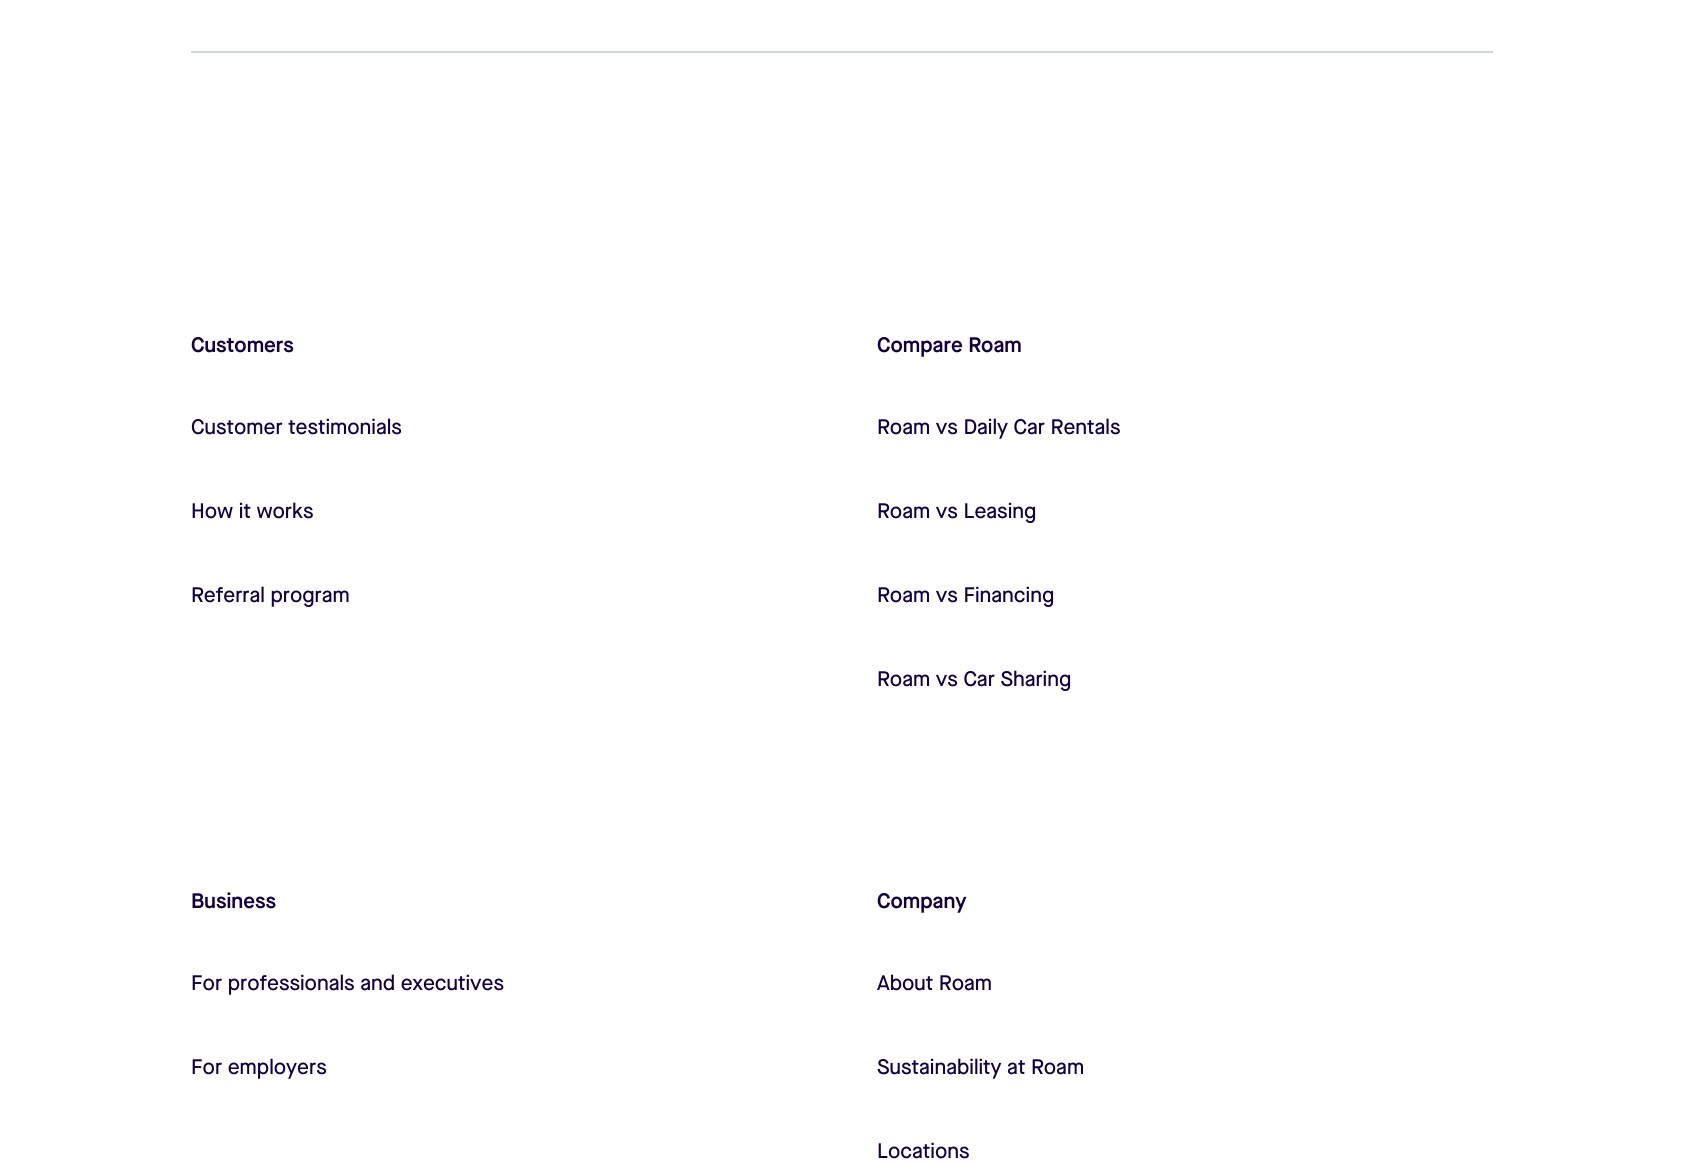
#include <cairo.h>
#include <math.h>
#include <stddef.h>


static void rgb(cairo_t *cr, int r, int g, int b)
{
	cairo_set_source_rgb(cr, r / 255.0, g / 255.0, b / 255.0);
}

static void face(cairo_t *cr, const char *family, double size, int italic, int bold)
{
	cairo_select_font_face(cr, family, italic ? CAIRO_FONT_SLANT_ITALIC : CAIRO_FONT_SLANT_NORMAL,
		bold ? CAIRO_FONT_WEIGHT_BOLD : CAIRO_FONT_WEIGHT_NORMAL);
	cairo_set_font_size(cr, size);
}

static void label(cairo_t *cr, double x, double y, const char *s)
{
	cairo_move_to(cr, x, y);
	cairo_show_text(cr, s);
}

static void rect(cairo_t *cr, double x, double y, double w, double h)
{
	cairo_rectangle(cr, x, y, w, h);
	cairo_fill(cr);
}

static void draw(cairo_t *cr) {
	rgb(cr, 255, 255, 255);
	cairo_paint(cr);
	rgb(cr, 204, 215, 218);
	rect(cr, 191, 51, 1302, 2);
	face(cr, "Maison Neue SemiBold", 21, 0, 0);
	rgb(cr, 19, 1, 63);
	label(cr, 191, 352, "Customers");
	face(cr, "Maison Neue Medium", 21, 0, 0);
	label(cr, 191, 434, "Customer testimonials");
	label(cr, 191, 518, "How it works");
	label(cr, 191, 602, "Referral program");
	face(cr, "Maison Neue SemiBold", 21, 0, 0);
	label(cr, 877, 352, "Compare Roam");
	face(cr, "Maison Neue Medium", 21, 0, 0);
	label(cr, 877, 434, "Roam vs Daily Car Rentals");
	label(cr, 877, 518, "Roam vs Leasing");
	label(cr, 877, 602, "Roam vs Financing");
	label(cr, 877, 686, "Roam vs Car Sharing");
	face(cr, "Maison Neue SemiBold", 21, 0, 0);
	label(cr, 191, 908, "Business");
	face(cr, "Maison Neue Medium", 21, 0, 0);
	label(cr, 191, 990, "For professionals and executives");
	label(cr, 191, 1074, "For employers");
	face(cr, "Maison Neue SemiBold", 21, 0, 0);
	label(cr, 877, 908, "Company");
	face(cr, "Maison Neue Medium", 21, 0, 0);
	label(cr, 877, 990, "About Roam");
	label(cr, 877, 1074, "Sustainability at Roam");
	label(cr, 877, 1158, "Locations");
}

int main(void) {
	cairo_surface_t *surface = cairo_image_surface_create(CAIRO_FORMAT_RGB24, 1682, 1162);
	cairo_t *cr = cairo_create(surface);
	cairo_font_options_t *options = cairo_font_options_create();
	cairo_font_options_set_hint_metrics(options, CAIRO_HINT_METRICS_OFF);
	cairo_font_options_set_hint_style(options, CAIRO_HINT_STYLE_NONE);
	cairo_set_font_options(cr, options);
	cairo_set_miter_limit(cr, 4);
	draw(cr);
	cairo_surface_write_to_png(surface, "render.png");
	cairo_font_options_destroy(options);
	cairo_destroy(cr);
	cairo_surface_destroy(surface);
	return 0;
}
